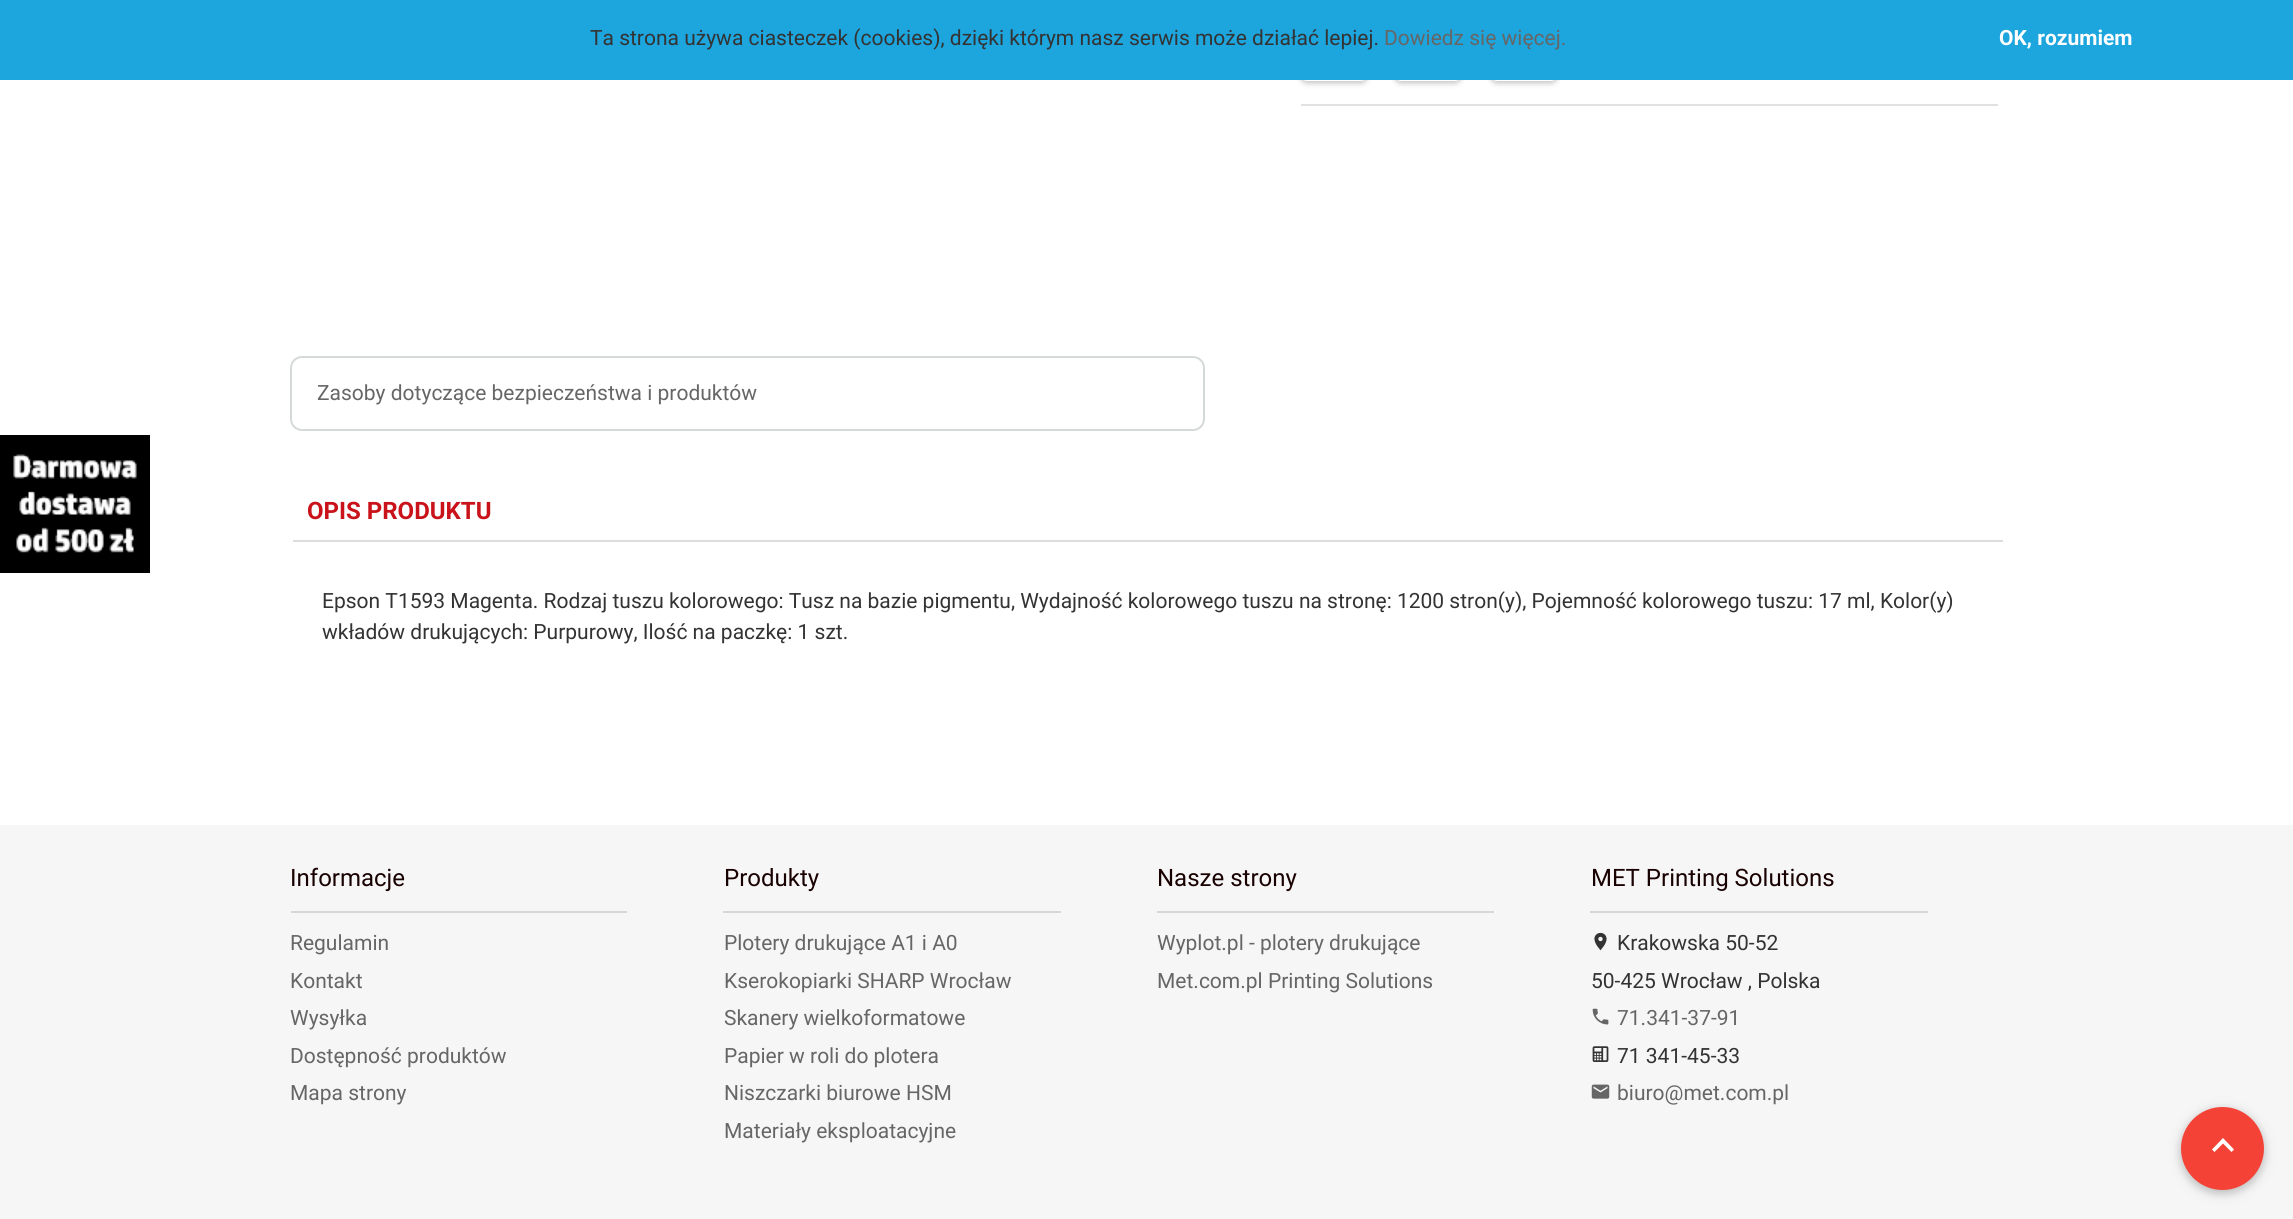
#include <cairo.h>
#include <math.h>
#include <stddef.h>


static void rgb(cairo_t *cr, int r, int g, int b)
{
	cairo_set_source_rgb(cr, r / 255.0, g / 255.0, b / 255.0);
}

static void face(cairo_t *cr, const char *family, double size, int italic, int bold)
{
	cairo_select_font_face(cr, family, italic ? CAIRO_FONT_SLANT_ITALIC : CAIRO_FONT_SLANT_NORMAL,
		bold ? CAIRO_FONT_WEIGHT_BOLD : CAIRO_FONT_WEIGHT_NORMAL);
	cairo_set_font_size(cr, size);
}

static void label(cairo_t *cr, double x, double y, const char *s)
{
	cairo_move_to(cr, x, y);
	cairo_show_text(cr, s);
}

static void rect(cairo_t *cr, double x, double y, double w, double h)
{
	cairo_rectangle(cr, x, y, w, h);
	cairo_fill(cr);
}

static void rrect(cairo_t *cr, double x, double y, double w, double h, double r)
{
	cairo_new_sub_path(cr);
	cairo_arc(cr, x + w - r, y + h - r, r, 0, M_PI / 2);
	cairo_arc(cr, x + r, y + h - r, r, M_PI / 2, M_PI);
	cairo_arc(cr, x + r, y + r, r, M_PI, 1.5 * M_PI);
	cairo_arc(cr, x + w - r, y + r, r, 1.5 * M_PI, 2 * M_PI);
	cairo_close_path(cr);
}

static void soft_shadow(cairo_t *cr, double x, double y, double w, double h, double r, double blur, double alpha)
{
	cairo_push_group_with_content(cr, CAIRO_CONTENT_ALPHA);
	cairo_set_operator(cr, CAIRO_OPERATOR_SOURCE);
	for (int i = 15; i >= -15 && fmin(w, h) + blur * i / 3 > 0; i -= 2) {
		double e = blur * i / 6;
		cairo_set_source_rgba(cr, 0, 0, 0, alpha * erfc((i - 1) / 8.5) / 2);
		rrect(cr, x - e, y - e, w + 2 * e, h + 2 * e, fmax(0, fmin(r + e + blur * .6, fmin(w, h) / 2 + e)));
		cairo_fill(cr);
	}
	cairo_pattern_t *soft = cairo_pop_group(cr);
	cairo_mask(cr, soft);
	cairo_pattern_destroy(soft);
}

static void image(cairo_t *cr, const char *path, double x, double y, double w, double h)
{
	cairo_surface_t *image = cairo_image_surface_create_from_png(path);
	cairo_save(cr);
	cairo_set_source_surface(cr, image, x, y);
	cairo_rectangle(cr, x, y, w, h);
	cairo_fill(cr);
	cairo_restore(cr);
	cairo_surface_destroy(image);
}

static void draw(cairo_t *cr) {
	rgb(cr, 255, 255, 255);
	cairo_paint(cr);
	rgb(cr, 0, 0, 0);
	soft_shadow(cr, 1301, 26, 66, 57, 6, 3, 0.25);
	rgb(cr, 255, 255, 255);
	rrect(cr, 1301, 24, 66, 57, 6);
	cairo_fill(cr);
	rgb(cr, 0, 0, 0);
	soft_shadow(cr, 1395, 26, 66, 57, 6, 3, 0.25);
	rgb(cr, 255, 255, 255);
	rrect(cr, 1395, 24, 66, 57, 6);
	cairo_fill(cr);
	rgb(cr, 0, 0, 0);
	soft_shadow(cr, 1491, 26, 66, 57, 6, 3, 0.25);
	rgb(cr, 255, 255, 255);
	rrect(cr, 1491, 24, 66, 57, 6);
	cairo_fill(cr);
	rgb(cr, 29, 165, 222);
	rect(cr, 0, 0, 2293, 80);
	face(cr, "Roboto", 21, 0, 0);
	rgb(cr, 51, 51, 51);
	label(cr, 590, 45, "Ta strona używa ciasteczek (cookies), dzięki którym nasz serwis może działać lepiej.");
	rgb(cr, 102, 102, 102);
	label(cr, 1384, 45, "Dowiedz się więcej.");
	face(cr, "Roboto", 21, 0, 1);
	rgb(cr, 255, 255, 255);
	label(cr, 1999, 45, "OK, rozumiem");
	image(cr, "image0.png", 0, 435, 150, 138);
	rgb(cr, 225, 225, 225);
	rect(cr, 1301, 104, 697, 2);
	rrect(cr, 291, 357, 913, 73, 11);
	rgb(cr, 213, 217, 217);
	cairo_stroke(cr);
	face(cr, "Roboto", 21, 0, 0);
	rgb(cr, 102, 102, 102);
	label(cr, 317, 400, "Zasoby dotyczące bezpieczeństwa i produktów");
	rgb(cr, 221, 221, 221);
	rect(cr, 293, 540, 1710, 2);
	face(cr, "Roboto", 24, 0, 1);
	rgb(cr, 201, 18, 25);
	label(cr, 307, 519, "OPIS PRODUKTU");
	face(cr, "Roboto", 21, 0, 0);
	rgb(cr, 51, 51, 51);
	label(cr, 322, 608, "Epson T1593 Magenta. Rodzaj tuszu kolorowego: Tusz na bazie pigmentu, Wydajność kolorowego tuszu na stronę: 1200 stron(y), Pojemność kolorowego tuszu: 17 ml, Kolor(y)");
	label(cr, 322, 639, "wkładów drukujących: Purpurowy, Ilość na paczkę: 1 szt.");
	rgb(cr, 246, 246, 246);
	rect(cr, 0, 825, 2293, 394);
	rgb(cr, 215, 215, 215);
	rect(cr, 291, 911, 336, 2);
	face(cr, "Roboto", 24, 0, 0);
	rgb(cr, 25, 1, 1);
	label(cr, 290, 886, "Informacje");
	face(cr, "Roboto", 21, 0, 0);
	rgb(cr, 102, 102, 102);
	label(cr, 290, 950, "Regulamin");
	label(cr, 290, 988, "Kontakt");
	label(cr, 290, 1025, "Wysyłka");
	label(cr, 290, 1063, "Dostępność produktów");
	label(cr, 290, 1100, "Mapa strony");
	rgb(cr, 215, 215, 215);
	rect(cr, 723, 911, 338, 2);
	face(cr, "Roboto", 24, 0, 0);
	rgb(cr, 25, 1, 1);
	label(cr, 724, 886, "Produkty");
	face(cr, "Roboto", 21, 0, 0);
	rgb(cr, 102, 102, 102);
	label(cr, 724, 950, "Plotery drukujące A1 i A0");
	label(cr, 724, 988, "Kserokopiarki SHARP Wrocław");
	label(cr, 724, 1025, "Skanery wielkoformatowe");
	label(cr, 724, 1063, "Papier w roli do plotera");
	label(cr, 724, 1100, "Niszczarki biurowe HSM");
	label(cr, 724, 1138, "Materiały eksploatacyjne");
	rgb(cr, 215, 215, 215);
	rect(cr, 1157, 911, 337, 2);
	face(cr, "Roboto", 24, 0, 0);
	rgb(cr, 25, 1, 1);
	label(cr, 1157, 886, "Nasze strony");
	face(cr, "Roboto", 21, 0, 0);
	rgb(cr, 102, 102, 102);
	label(cr, 1157, 950, "Wyplot.pl - plotery drukujące");
	label(cr, 1157, 988, "Met.com.pl Printing Solutions");
	rgb(cr, 215, 215, 215);
	rect(cr, 1590, 911, 338, 2);
	face(cr, "Roboto", 24, 0, 0);
	rgb(cr, 25, 1, 1);
	label(cr, 1591, 886, "MET Printing Solutions");
	image(cr, "image1.png", 1594, 932, 13, 19);
	face(cr, "Roboto", 21, 0, 0);
	rgb(cr, 51, 51, 51);
	label(cr, 1617, 950, "Krakowska 50-52");
	label(cr, 1591, 988, "50-425 Wrocław , Polska");
	image(cr, "image2.png", 1592, 1008, 17, 17);
	rgb(cr, 102, 102, 102);
	label(cr, 1617, 1025, "71.341-37-91");
	image(cr, "image3.png", 1592, 1046, 17, 16);
	rgb(cr, 51, 51, 51);
	label(cr, 1617, 1063, "71 341-45-33");
	image(cr, "image4.png", 1591, 1084, 19, 15);
	rgb(cr, 102, 102, 102);
	label(cr, 1617, 1100, "biuro@met.com.pl");
	rgb(cr, 0, 0, 0);
	soft_shadow(cr, 2181, 1110, 83, 83, 41.5, 7.5, 0.12);
	soft_shadow(cr, 2181, 1110, 83, 83, 41.5, 4, 0.16);
	rgb(cr, 244, 67, 54);
	cairo_arc(cr, 2222.5, 1148.5, 41.5, 0, 2 * M_PI);
	cairo_fill(cr);
	rgb(cr, 255, 255, 255);
	cairo_new_path(cr);
	cairo_move_to(cr, 2214.5, 1152);
	cairo_line_to(cr, 2223, 1143.5);
	cairo_line_to(cr, 2231.5, 1152);
	cairo_line_to(cr, 2234, 1149.5);
	cairo_line_to(cr, 2223, 1138);
	cairo_line_to(cr, 2212, 1149.5);
	cairo_close_path(cr);
	cairo_fill(cr);
}

int main(void) {
	cairo_surface_t *surface = cairo_image_surface_create(CAIRO_FORMAT_RGB24, 2293, 1219);
	cairo_t *cr = cairo_create(surface);
	cairo_font_options_t *options = cairo_font_options_create();
	cairo_font_options_set_hint_metrics(options, CAIRO_HINT_METRICS_OFF);
	cairo_font_options_set_hint_style(options, CAIRO_HINT_STYLE_NONE);
	cairo_set_font_options(cr, options);
	cairo_set_miter_limit(cr, 4);
	draw(cr);
	cairo_surface_write_to_png(surface, "render.png");
	cairo_font_options_destroy(options);
	cairo_destroy(cr);
	cairo_surface_destroy(surface);
	return 0;
}
